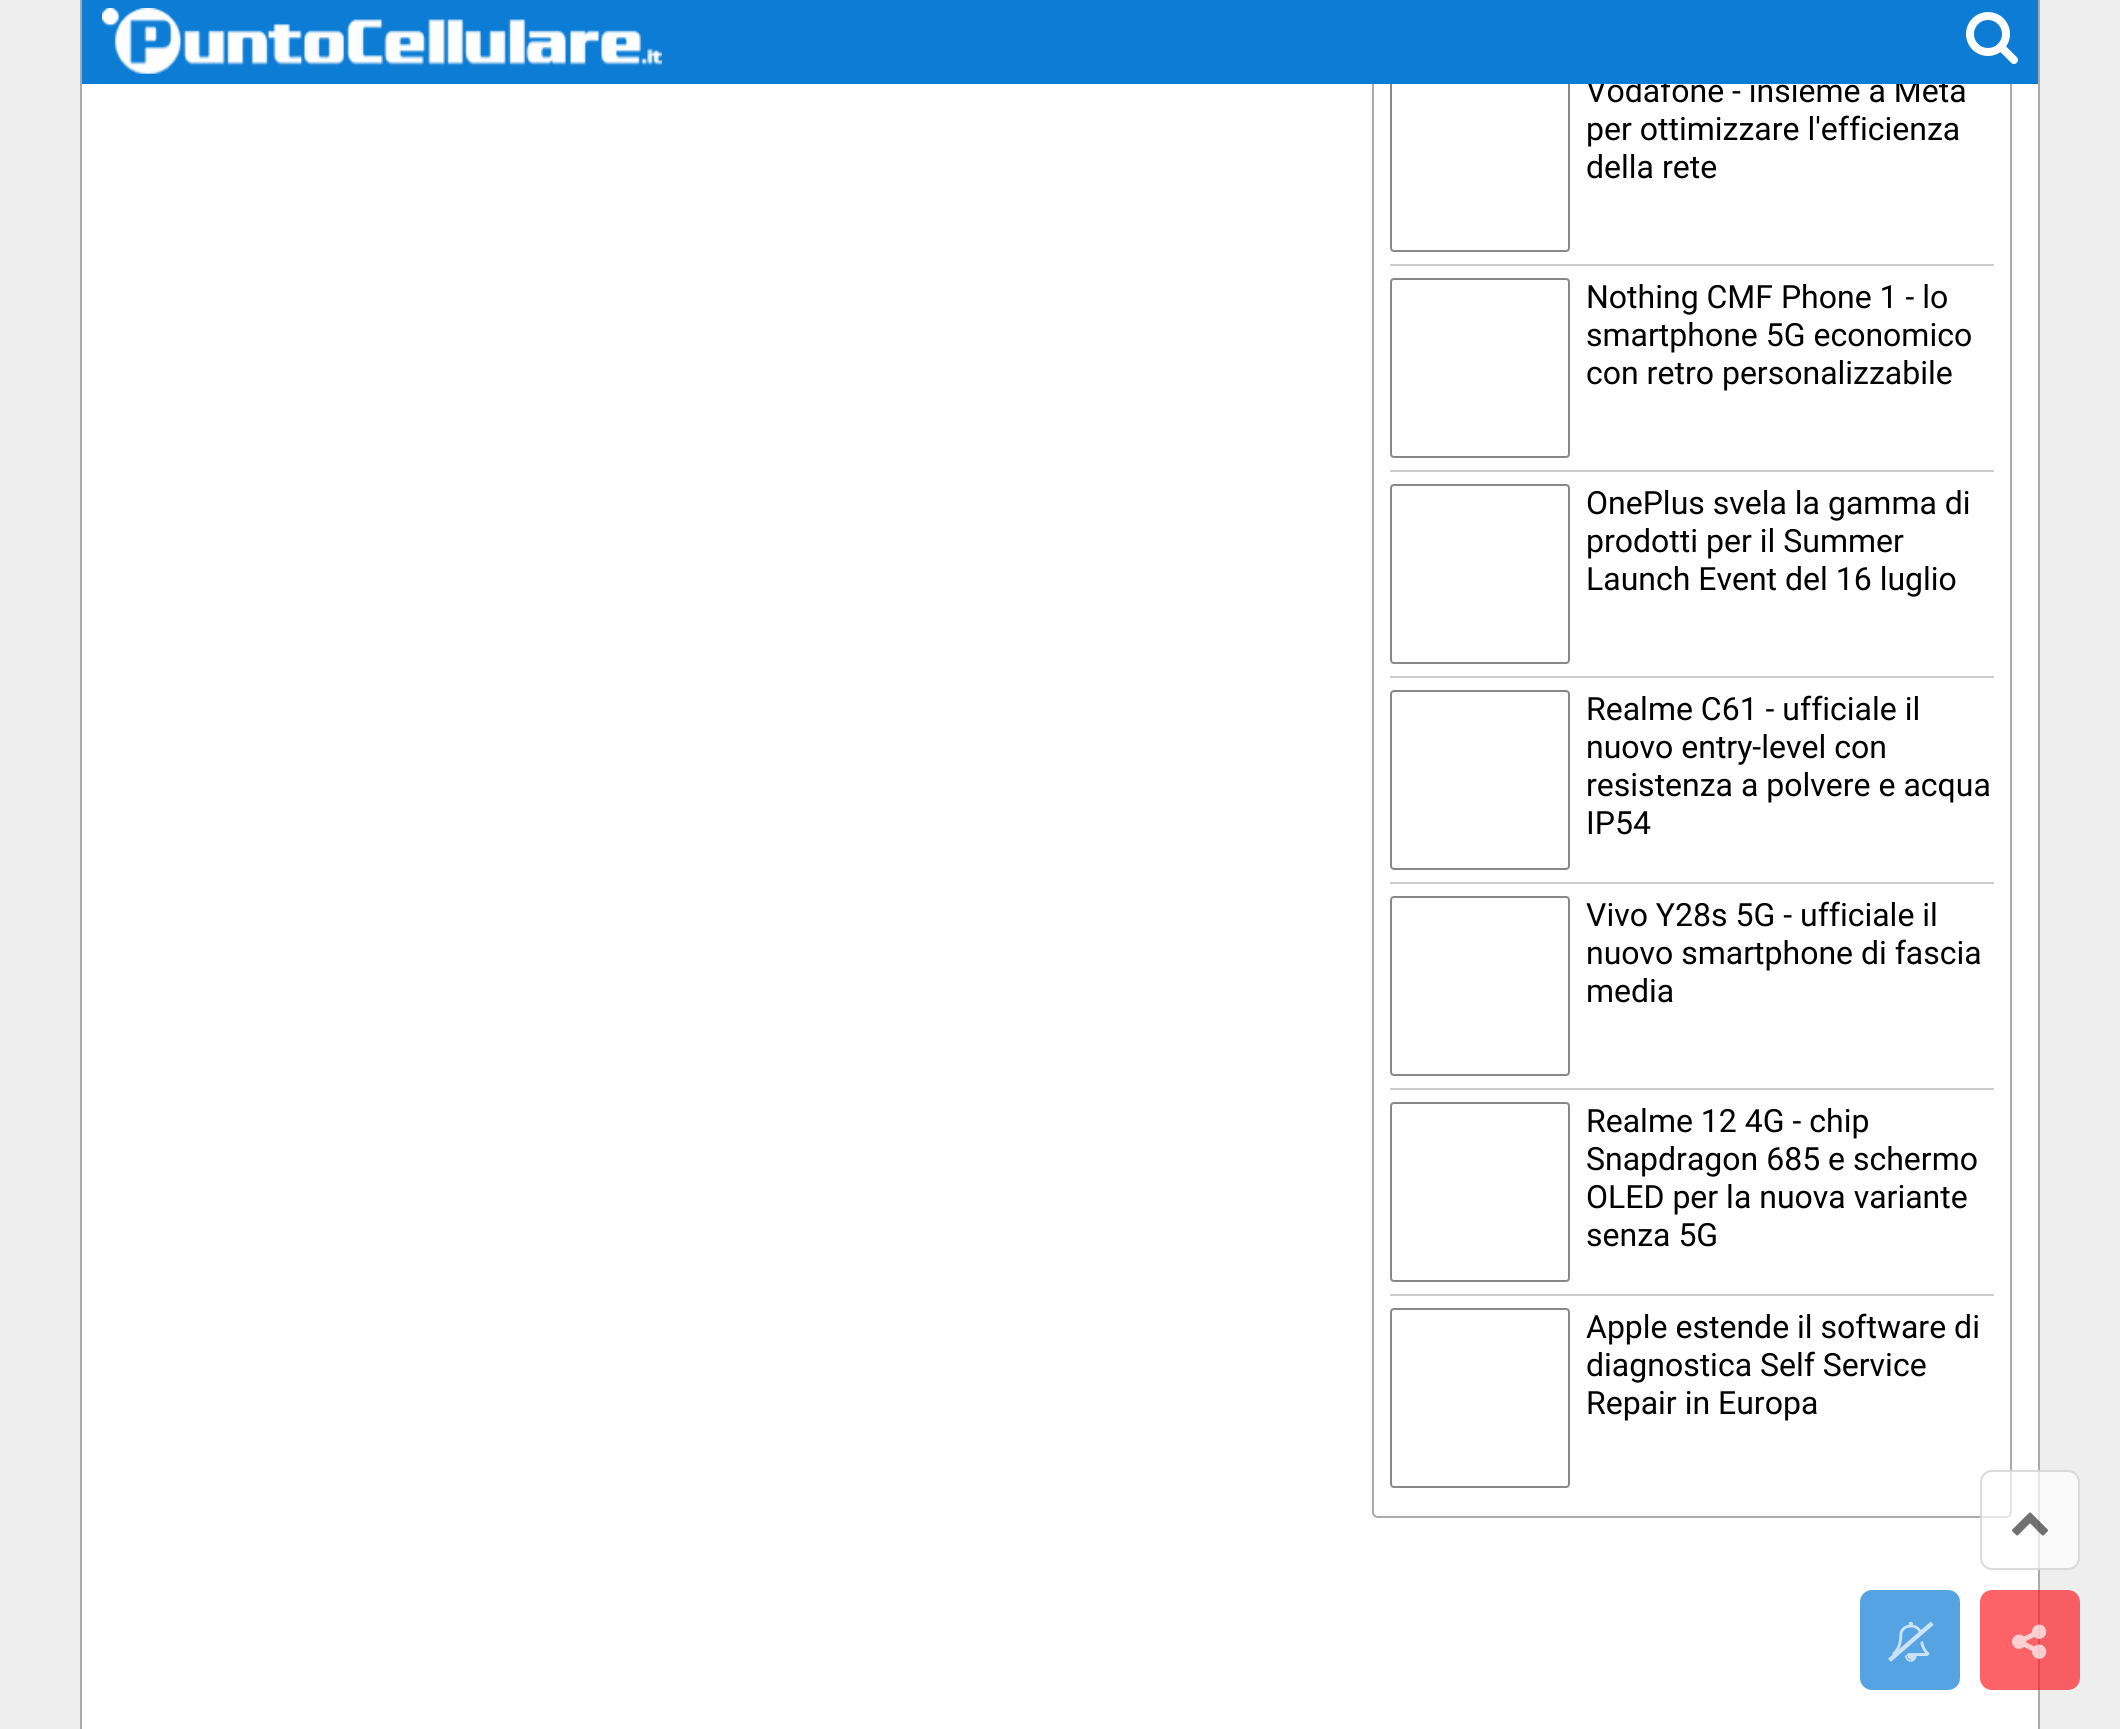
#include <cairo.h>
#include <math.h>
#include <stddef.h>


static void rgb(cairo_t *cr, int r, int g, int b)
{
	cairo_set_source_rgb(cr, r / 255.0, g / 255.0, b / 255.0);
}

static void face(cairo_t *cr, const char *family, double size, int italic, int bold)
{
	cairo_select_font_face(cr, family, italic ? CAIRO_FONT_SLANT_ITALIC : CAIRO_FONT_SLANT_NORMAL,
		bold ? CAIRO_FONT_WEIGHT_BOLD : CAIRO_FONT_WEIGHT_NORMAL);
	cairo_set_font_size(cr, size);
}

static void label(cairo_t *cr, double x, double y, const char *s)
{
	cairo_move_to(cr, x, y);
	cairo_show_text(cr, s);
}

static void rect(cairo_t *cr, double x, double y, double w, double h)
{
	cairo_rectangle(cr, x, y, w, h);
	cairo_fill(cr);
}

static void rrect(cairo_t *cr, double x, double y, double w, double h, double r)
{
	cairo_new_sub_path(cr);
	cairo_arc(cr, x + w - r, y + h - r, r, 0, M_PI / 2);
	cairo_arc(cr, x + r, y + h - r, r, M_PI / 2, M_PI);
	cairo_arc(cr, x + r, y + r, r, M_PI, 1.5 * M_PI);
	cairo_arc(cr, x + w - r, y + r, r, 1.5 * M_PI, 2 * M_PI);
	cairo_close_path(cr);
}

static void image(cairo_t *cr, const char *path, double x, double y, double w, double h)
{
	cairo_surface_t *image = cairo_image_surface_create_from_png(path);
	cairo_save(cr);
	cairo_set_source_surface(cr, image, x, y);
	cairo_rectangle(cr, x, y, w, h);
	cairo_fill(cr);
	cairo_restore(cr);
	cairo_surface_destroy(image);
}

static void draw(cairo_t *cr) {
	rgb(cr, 238, 238, 238);
	cairo_paint(cr);
	rgb(cr, 255, 255, 255);
	rect(cr, 82, 84, 1956, 1645);
	rgb(cr, 170, 170, 170);
	rect(cr, 2038, 0, 2, 1729);
	rect(cr, 80, 0, 2, 1729);
	cairo_new_path(cr);
	cairo_move_to(cr, 1373, -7);
	cairo_line_to(cr, 2011, -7);
	cairo_line_to(cr, 2011, 1512);
	cairo_curve_to(cr, 2011, 1515, 2009, 1517, 2006, 1517);
	cairo_line_to(cr, 1378, 1517);
	cairo_curve_to(cr, 1375, 1517, 1373, 1515, 1373, 1512);
	cairo_close_path(cr);
	cairo_stroke(cr);
	rrect(cr, 1391, 73, 178, 178, 3);
	rgb(cr, 136, 136, 136);
	cairo_stroke(cr);
	face(cr, "Roboto", 32, 0, 0);
	rgb(cr, 0, 0, 0);
	label(cr, 1586, 102, "Vodafone - insieme a Meta");
	rgb(cr, 12, 124, 213);
	rect(cr, 82, 0, 1956, 84);
	image(cr, "image0.png", 102, 8, 560, 66);
	image(cr, "image1.png", 1966, 12, 52, 52);
	rgb(cr, 204, 204, 204);
	rect(cr, 1390, 264, 604, 2);
	rgb(cr, 0, 0, 0);
	label(cr, 1586, 140, "per ottimizzare l'efficienza");
	label(cr, 1586, 178, "della rete");
	rgb(cr, 204, 204, 204);
	rect(cr, 1390, 470, 604, 2);
	rrect(cr, 1391, 279, 178, 178, 3);
	rgb(cr, 136, 136, 136);
	cairo_stroke(cr);
	rgb(cr, 0, 0, 0);
	label(cr, 1586, 308, "Nothing CMF Phone 1 - lo");
	label(cr, 1586, 346, "smartphone 5G economico");
	label(cr, 1586, 384, "con retro personalizzabile");
	rgb(cr, 204, 204, 204);
	rect(cr, 1390, 676, 604, 2);
	rrect(cr, 1391, 485, 178, 178, 3);
	rgb(cr, 136, 136, 136);
	cairo_stroke(cr);
	rgb(cr, 0, 0, 0);
	label(cr, 1586, 514, "OnePlus svela la gamma di");
	label(cr, 1586, 552, "prodotti per il Summer");
	label(cr, 1586, 590, "Launch Event del 16 luglio");
	rgb(cr, 204, 204, 204);
	rect(cr, 1390, 882, 604, 2);
	rrect(cr, 1391, 691, 178, 178, 3);
	rgb(cr, 136, 136, 136);
	cairo_stroke(cr);
	rgb(cr, 0, 0, 0);
	label(cr, 1586, 720, "Realme C61 - ufficiale il");
	label(cr, 1586, 758, "nuovo entry-level con");
	label(cr, 1586, 796, "resistenza a polvere e acqua");
	label(cr, 1586, 834, "IP54");
	rgb(cr, 204, 204, 204);
	rect(cr, 1390, 1088, 604, 2);
	rrect(cr, 1391, 897, 178, 178, 3);
	rgb(cr, 136, 136, 136);
	cairo_stroke(cr);
	rgb(cr, 0, 0, 0);
	label(cr, 1586, 926, "Vivo Y28s 5G - ufficiale il");
	label(cr, 1586, 964, "nuovo smartphone di fascia");
	label(cr, 1586, 1002, "media");
	rgb(cr, 204, 204, 204);
	rect(cr, 1390, 1294, 604, 2);
	rrect(cr, 1391, 1103, 178, 178, 3);
	rgb(cr, 136, 136, 136);
	cairo_stroke(cr);
	rgb(cr, 0, 0, 0);
	label(cr, 1586, 1132, "Realme 12 4G - chip");
	label(cr, 1586, 1170, "Snapdragon 685 e schermo");
	label(cr, 1586, 1208, "OLED per la nuova variante");
	label(cr, 1586, 1246, "senza 5G");
	rrect(cr, 1391, 1309, 178, 178, 3);
	rgb(cr, 136, 136, 136);
	cairo_stroke(cr);
	rgb(cr, 0, 0, 0);
	label(cr, 1586, 1338, "Apple estende il software di");
	label(cr, 1586, 1376, "diagnostica Self Service");
	label(cr, 1586, 1414, "Repair in Europa");
	cairo_set_source_rgba(cr, 1, 1, 1, 0.7);
	rrect(cr, 1980, 1470, 100, 100, 12);
	cairo_fill(cr);
	rrect(cr, 1981, 1471, 98, 98, 11);
	cairo_set_source_rgba(cr, 0.8, 0.8, 0.8, 0.7);
	cairo_stroke(cr);
	image(cr, "image2.png", 2012, 1512, 36, 24);
	cairo_set_source_rgba(cr, 0.984, 0.125, 0.153, 0.7);
	rrect(cr, 1980, 1590, 100, 100, 12);
	cairo_fill(cr);
	image(cr, "image3.png", 2012, 1624, 35, 35);
	rgb(cr, 85, 163, 226);
	rrect(cr, 1860, 1590, 100, 100, 12);
	cairo_fill(cr);
	image(cr, "image4.png", 1888, 1621, 46, 41);
}

int main(void) {
	cairo_surface_t *surface = cairo_image_surface_create(CAIRO_FORMAT_RGB24, 2120, 1729);
	cairo_t *cr = cairo_create(surface);
	cairo_font_options_t *options = cairo_font_options_create();
	cairo_font_options_set_hint_metrics(options, CAIRO_HINT_METRICS_OFF);
	cairo_font_options_set_hint_style(options, CAIRO_HINT_STYLE_NONE);
	cairo_set_font_options(cr, options);
	cairo_set_miter_limit(cr, 4);
	draw(cr);
	cairo_surface_write_to_png(surface, "render.png");
	cairo_font_options_destroy(options);
	cairo_destroy(cr);
	cairo_surface_destroy(surface);
	return 0;
}
